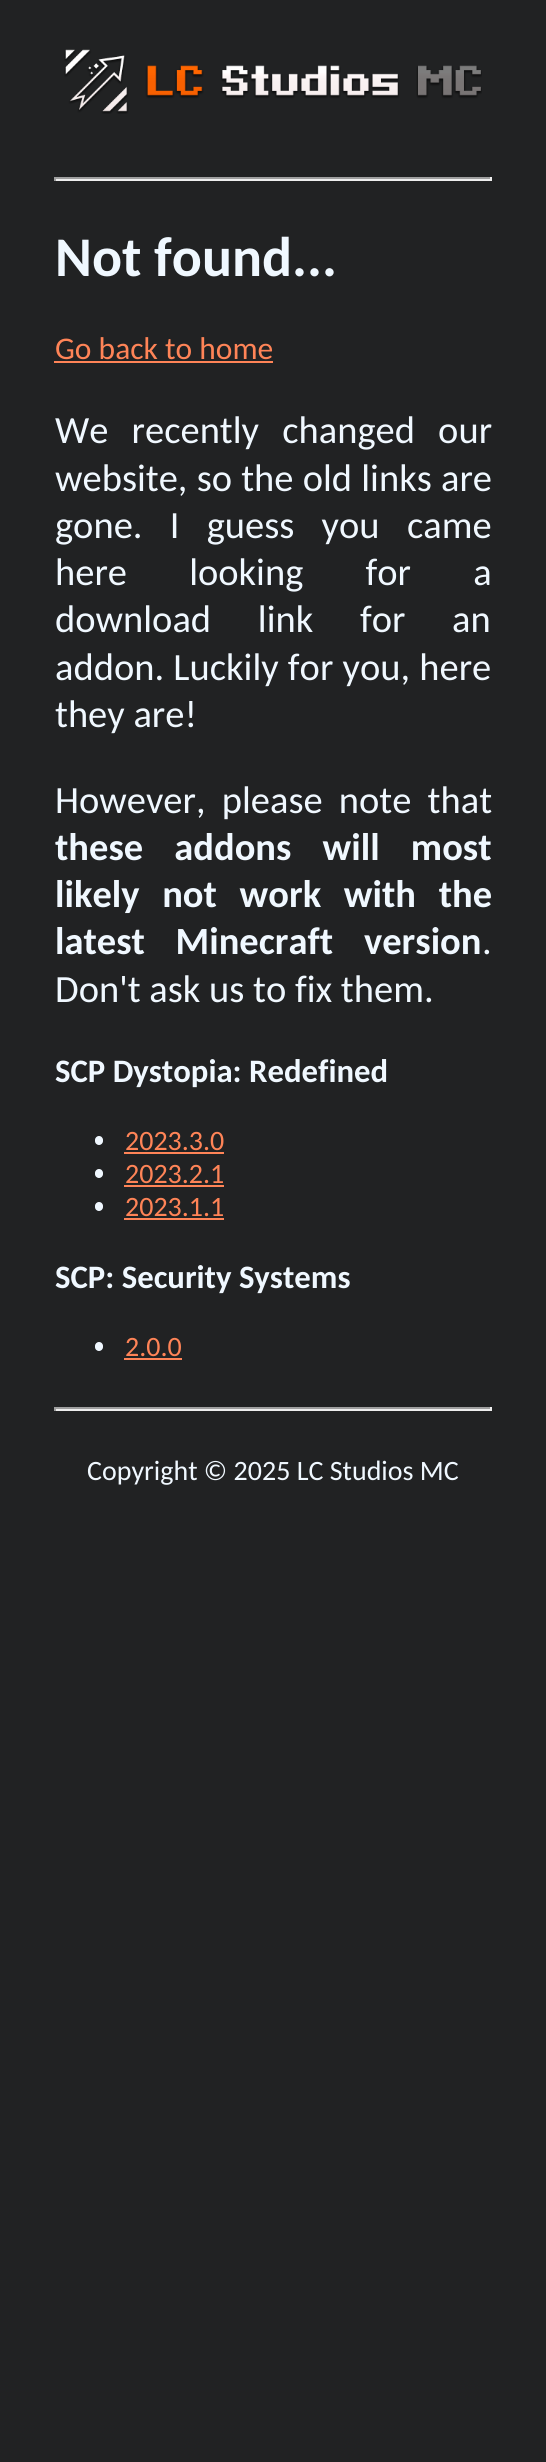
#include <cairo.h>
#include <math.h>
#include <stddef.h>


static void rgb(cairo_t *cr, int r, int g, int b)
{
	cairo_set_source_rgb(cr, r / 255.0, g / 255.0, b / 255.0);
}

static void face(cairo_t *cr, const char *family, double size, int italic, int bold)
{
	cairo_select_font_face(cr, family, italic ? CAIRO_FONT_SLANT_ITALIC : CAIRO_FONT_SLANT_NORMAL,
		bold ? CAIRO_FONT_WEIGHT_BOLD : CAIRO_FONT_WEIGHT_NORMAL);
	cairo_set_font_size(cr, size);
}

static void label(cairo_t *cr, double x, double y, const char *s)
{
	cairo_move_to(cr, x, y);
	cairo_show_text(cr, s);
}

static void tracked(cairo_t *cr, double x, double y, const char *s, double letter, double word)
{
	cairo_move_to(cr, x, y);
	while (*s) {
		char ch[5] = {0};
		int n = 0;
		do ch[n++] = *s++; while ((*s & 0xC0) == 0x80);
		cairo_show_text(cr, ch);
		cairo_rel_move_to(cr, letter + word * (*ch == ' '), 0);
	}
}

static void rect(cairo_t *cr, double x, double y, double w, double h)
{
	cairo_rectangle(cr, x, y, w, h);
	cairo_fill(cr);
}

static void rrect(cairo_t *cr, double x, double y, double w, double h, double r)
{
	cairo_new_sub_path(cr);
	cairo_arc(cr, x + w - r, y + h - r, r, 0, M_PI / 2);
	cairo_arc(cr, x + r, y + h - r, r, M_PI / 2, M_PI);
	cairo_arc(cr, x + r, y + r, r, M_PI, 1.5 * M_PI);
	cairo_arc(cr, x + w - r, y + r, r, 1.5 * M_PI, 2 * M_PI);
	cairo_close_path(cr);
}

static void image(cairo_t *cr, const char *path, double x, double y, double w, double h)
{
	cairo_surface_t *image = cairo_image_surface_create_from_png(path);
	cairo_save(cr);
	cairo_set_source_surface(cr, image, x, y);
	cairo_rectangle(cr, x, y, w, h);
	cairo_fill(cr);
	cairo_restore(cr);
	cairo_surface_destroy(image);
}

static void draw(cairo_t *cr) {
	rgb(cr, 33, 34, 35);
	cairo_paint(cr);
	image(cr, "image0.png", 64, 49, 418, 65);
	rgb(cr, 159, 159, 159);
	rect(cr, 54, 177, 438, 2);
	rgb(cr, 238, 238, 238);
	rect(cr, 490, 177, 2, 4);
	rect(cr, 54, 179, 438, 2);
	rgb(cr, 159, 159, 159);
	rect(cr, 54, 177, 2, 4);
	face(cr, "Carlito", 56, 0, 1);
	rgb(cr, 240, 248, 255);
	label(cr, 55, 276, "Not found...");
	face(cr, "Carlito", 31.5, 0, 0);
	rgb(cr, 255, 132, 87);
	label(cr, 55, 359, "Go back to home");
	rect(cr, 54, 361, 219, 2);
	face(cr, "Carlito", 38.5, 0, 0);
	rgb(cr, 240, 248, 255);
	tracked(cr, 55, 443, "We recently changed our", 0, 14.5);
	tracked(cr, 55, 491, "website, so the old links are", 0, 0.5);
	tracked(cr, 55, 538, "gone. I guess you", 0, 18.5);
	label(cr, 407, 538, "came");
	tracked(cr, 55, 585, "here looking for a", 0, 53.5);
	tracked(cr, 55, 632, "download link for an", 0, 38);
	tracked(cr, 55, 680, "addon. Luckily for you, here", 0, 0.5);
	label(cr, 55, 727, "they are!");
	tracked(cr, 55, 813, "However, please note that", 0, 7.5);
	face(cr, "Carlito", 38.5, 0, 1);
	tracked(cr, 55, 860, "these addons will most", 0, 22.5);
	tracked(cr, 55, 907, "likely not work with the", 0, 14);
	tracked(cr, 55, 954, "latest Minecraft", 0, 22);
	label(cr, 364, 954, "version");
	face(cr, "Carlito", 38.5, 0, 0);
	label(cr, 482, 954, ".");
	label(cr, 55, 1002, "Don't ask us to fix them.");
	face(cr, "Carlito", 32.75, 0, 1);
	label(cr, 55, 1082, "SCP Dystopia: Redefined");
	rrect(cr, 95, 1136, 8, 9, 4);
	cairo_fill(cr);
	face(cr, "Carlito", 28, 0, 0);
	rgb(cr, 255, 132, 87);
	label(cr, 125, 1150, "2023.3.0");
	rect(cr, 124, 1152, 100, 2);
	rgb(cr, 240, 248, 255);
	rrect(cr, 95, 1169, 8, 9, 4);
	cairo_fill(cr);
	rgb(cr, 255, 132, 87);
	label(cr, 125, 1183, "2023.2.1");
	rect(cr, 124, 1185, 100, 2);
	rgb(cr, 240, 248, 255);
	rrect(cr, 95, 1202, 8, 9, 4);
	cairo_fill(cr);
	rgb(cr, 255, 132, 87);
	label(cr, 125, 1216, "2023.1.1");
	rect(cr, 124, 1218, 100, 2);
	face(cr, "Carlito", 32.75, 0, 1);
	rgb(cr, 240, 248, 255);
	label(cr, 55, 1288, "SCP: Security Systems");
	rrect(cr, 95, 1342, 8, 9, 4);
	cairo_fill(cr);
	face(cr, "Carlito", 28, 0, 0);
	rgb(cr, 255, 132, 87);
	label(cr, 125, 1356, "2.0.0");
	rect(cr, 124, 1358, 58, 2);
	rgb(cr, 159, 159, 159);
	rect(cr, 54, 1407, 438, 2);
	rgb(cr, 238, 238, 238);
	rect(cr, 490, 1407, 2, 4);
	rect(cr, 54, 1409, 438, 2);
	rgb(cr, 159, 159, 159);
	rect(cr, 54, 1407, 2, 4);
	rgb(cr, 240, 248, 255);
	label(cr, 87, 1480, "Copyright © 2025 LC Studios MC");
}

int main(void) {
	cairo_surface_t *surface = cairo_image_surface_create(CAIRO_FORMAT_RGB24, 546, 2462);
	cairo_t *cr = cairo_create(surface);
	cairo_font_options_t *options = cairo_font_options_create();
	cairo_font_options_set_hint_metrics(options, CAIRO_HINT_METRICS_OFF);
	cairo_font_options_set_hint_style(options, CAIRO_HINT_STYLE_NONE);
	cairo_set_font_options(cr, options);
	cairo_set_miter_limit(cr, 4);
	draw(cr);
	cairo_surface_write_to_png(surface, "render.png");
	cairo_font_options_destroy(options);
	cairo_destroy(cr);
	cairo_surface_destroy(surface);
	return 0;
}
